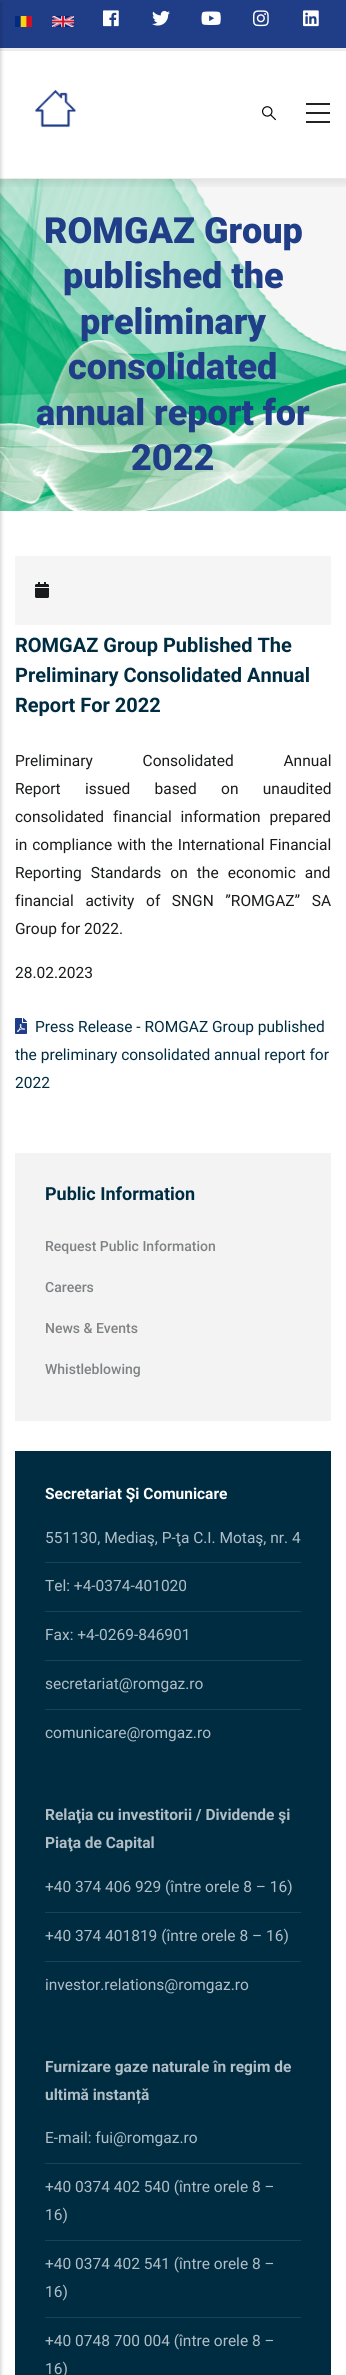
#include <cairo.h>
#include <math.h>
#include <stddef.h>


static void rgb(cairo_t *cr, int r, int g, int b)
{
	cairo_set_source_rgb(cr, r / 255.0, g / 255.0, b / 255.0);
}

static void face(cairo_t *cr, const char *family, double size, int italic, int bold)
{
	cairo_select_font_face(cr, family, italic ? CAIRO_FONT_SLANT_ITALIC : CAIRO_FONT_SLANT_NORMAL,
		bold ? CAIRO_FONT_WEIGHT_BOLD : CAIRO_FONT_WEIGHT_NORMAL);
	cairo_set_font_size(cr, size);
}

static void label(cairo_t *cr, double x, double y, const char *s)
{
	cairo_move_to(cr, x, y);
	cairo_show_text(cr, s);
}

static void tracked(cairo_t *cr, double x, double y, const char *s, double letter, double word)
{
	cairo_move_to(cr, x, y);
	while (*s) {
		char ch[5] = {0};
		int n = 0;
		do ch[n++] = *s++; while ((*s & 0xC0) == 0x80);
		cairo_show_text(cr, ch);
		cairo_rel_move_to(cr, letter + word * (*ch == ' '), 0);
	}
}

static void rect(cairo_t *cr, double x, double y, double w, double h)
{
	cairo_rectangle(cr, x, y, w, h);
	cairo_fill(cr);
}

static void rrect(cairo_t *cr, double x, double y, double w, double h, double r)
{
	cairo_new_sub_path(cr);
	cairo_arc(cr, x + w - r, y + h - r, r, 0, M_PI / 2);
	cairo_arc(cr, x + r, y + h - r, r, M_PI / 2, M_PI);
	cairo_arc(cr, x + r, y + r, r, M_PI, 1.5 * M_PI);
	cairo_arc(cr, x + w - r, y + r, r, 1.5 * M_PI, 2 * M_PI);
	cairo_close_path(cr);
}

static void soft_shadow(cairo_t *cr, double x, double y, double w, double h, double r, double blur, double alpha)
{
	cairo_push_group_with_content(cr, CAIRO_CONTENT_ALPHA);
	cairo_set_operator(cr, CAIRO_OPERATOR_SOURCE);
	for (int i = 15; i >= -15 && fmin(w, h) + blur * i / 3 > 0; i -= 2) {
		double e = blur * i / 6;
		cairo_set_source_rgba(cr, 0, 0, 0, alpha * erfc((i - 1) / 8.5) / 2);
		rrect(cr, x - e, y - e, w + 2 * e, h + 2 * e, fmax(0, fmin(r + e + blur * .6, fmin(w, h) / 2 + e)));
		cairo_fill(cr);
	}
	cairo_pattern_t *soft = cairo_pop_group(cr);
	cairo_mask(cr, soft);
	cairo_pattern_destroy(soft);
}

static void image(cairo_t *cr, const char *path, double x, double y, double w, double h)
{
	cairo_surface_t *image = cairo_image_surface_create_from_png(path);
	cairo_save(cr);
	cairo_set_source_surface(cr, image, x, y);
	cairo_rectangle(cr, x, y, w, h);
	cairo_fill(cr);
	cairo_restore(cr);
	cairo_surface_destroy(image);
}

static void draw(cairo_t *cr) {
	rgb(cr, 255, 255, 255);
	cairo_paint(cr);
	rgb(cr, 246, 246, 246);
	rect(cr, 0, 179, 346, 332);
	image(cr, "image9.png", 0, 179, 346, 332);
	image(cr, "image10.png", 0, 179, 346, 332);
	cairo_save(cr);
	cairo_rectangle(cr, 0, 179, 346, 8);
	cairo_clip(cr);
	rgb(cr, 0, 0, 0);
	soft_shadow(cr, -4, -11, 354, 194, 0, 5, 0.1);
	cairo_restore(cr);
	rgb(cr, 235, 235, 235);
	rect(cr, 0, 178, 346, 1);
	rgb(cr, 32, 61, 136);
	rect(cr, 0, 0, 346, 48);
	image(cr, "image0.png", 103, 10, 16, 17);
	image(cr, "image1.png", 152, 10, 18, 16);
	image(cr, "image2.png", 201, 11, 20, 14);
	image(cr, "image3.png", 253, 10, 16, 17);
	image(cr, "image4.png", 303, 10, 16, 17);
	rgb(cr, 237, 237, 240);
	rect(cr, 0, 48, 346, 3);
	image(cr, "image5.png", 15, 16, 17, 11);
	image(cr, "image6.png", 52, 16, 22, 11);
	rgb(cr, 0, 0, 0);
	soft_shadow(cr, -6, 3, 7, 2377, 0, 2, 0.2);
	image(cr, "image7.png", 262, 106, 14, 15);
	rgb(cr, 34, 34, 34);
	rect(cr, 306, 103, 24, 2);
	rect(cr, 306, 112, 24, 2);
	rect(cr, 306, 121, 24, 2);
	image(cr, "image8.png", 35, 89, 41, 39);
	face(cr, "Roboto Black", 36, 0, 0);
	rgb(cr, 32, 61, 136);
	label(cr, 44, 243, "ROMGAZ Group");
	label(cr, 63, 288, "published the");
	label(cr, 80, 334, "preliminary");
	label(cr, 68, 379, "consolidated");
	label(cr, 36, 425, "annual report for");
	label(cr, 131, 470, "2022");
	rgb(cr, 245, 245, 245);
	rect(cr, 15, 556, 316, 69);
	image(cr, "image11.png", 35, 582, 14, 16);
	face(cr, "Roboto", 20, 0, 1);
	rgb(cr, 0, 44, 66);
	label(cr, 15, 652, "ROMGAZ Group Published The");
	label(cr, 15, 682, "Preliminary Consolidated Annual");
	label(cr, 15, 712, "Report For 2022");
	face(cr, "Roboto", 15.5, 0, 0);
	rgb(cr, 25, 27, 28);
	tracked(cr, 15, 766, "Preliminary Consolidated Annual", 0, 46);
	tracked(cr, 15, 794, "Report issued based on unaudited", 0, 20.5);
	tracked(cr, 15, 822, "consolidated financial information prepared", 0, 5);
	tracked(cr, 15, 850, "in compliance with the International Financial", 0, 1);
	tracked(cr, 15, 878, "Reporting Standards on the economic and", 0, 5.25);
	tracked(cr, 15, 906, "financial activity of SNGN ”ROMGAZ” SA", 0, 7.75);
	label(cr, 15, 934, "Group for 2022.");
	label(cr, 15, 978, "28.02.2023");
	image(cr, "image12.png", 15, 1018, 12, 16);
	rgb(cr, 0, 44, 66);
	label(cr, 35, 1032, "Press Release - ROMGAZ Group published");
	label(cr, 15, 1060, "the preliminary consolidated annual report for");
	label(cr, 15, 1088, "2022");
	rgb(cr, 243, 243, 243);
	rect(cr, 15, 1153, 316, 268);
	face(cr, "Roboto", 18, 0, 1);
	rgb(cr, 0, 44, 66);
	label(cr, 45, 1200, "Public Information");
	face(cr, "Roboto Medium", 14, 0, 0);
	rgb(cr, 127, 130, 132);
	label(cr, 45, 1251, "Request Public Information");
	label(cr, 45, 1292, "Careers");
	label(cr, 45, 1333, "News & Events");
	label(cr, 45, 1374, "Whistleblowing");
	rgb(cr, 0, 44, 66);
	rect(cr, 15, 1451, 316, 924);
	face(cr, "Roboto", 15.5, 0, 1);
	rgb(cr, 255, 255, 255);
	label(cr, 45, 1499, "Secretariat Şi Comunicare");
	rgb(cr, 26, 65, 85);
	rect(cr, 45, 1562, 256, 1);
	face(cr, "Roboto", 15.5, 0, 0);
	rgb(cr, 177, 190, 197);
	label(cr, 45, 1543, "551130, Mediaş, P-ţa C.I. Motaş, nr. 4");
	rgb(cr, 26, 65, 85);
	rect(cr, 45, 1611, 256, 1);
	rgb(cr, 177, 190, 197);
	label(cr, 45, 1591, "Tel: +4-0374-401020");
	rgb(cr, 26, 65, 85);
	rect(cr, 45, 1660, 256, 1);
	rgb(cr, 177, 190, 197);
	label(cr, 45, 1640, "Fax: +4-0269-846901");
	rgb(cr, 26, 65, 85);
	rect(cr, 45, 1709, 256, 1);
	rgb(cr, 177, 190, 197);
	label(cr, 45, 1689, "secretariat@romgaz.ro");
	label(cr, 45, 1738, "comunicare@romgaz.ro");
	face(cr, "Roboto", 15.5, 0, 1);
	label(cr, 45, 1820, "Relaţia cu investitorii / Dividende şi");
	label(cr, 45, 1848, "Piaţa de Capital");
	rgb(cr, 26, 65, 85);
	rect(cr, 45, 1912, 256, 1);
	face(cr, "Roboto", 15.5, 0, 0);
	rgb(cr, 177, 190, 197);
	label(cr, 45, 1892, "+40 374 406 929 (între orele 8 – 16)");
	rgb(cr, 26, 65, 85);
	rect(cr, 45, 1961, 256, 1);
	rgb(cr, 177, 190, 197);
	label(cr, 45, 1941, "+40 374 401819 (între orele 8 – 16)");
	label(cr, 45, 1990, "investor.relations@romgaz.ro");
	face(cr, "Roboto", 15.5, 0, 1);
	label(cr, 45, 2072, "Furnizare gaze naturale în regim de");
	label(cr, 45, 2100, "ultimă instanță");
	rgb(cr, 26, 65, 85);
	rect(cr, 45, 2163, 256, 1);
	face(cr, "Roboto", 15.5, 0, 0);
	rgb(cr, 177, 190, 197);
	label(cr, 45, 2143, "E-mail: fui@romgaz.ro");
	rgb(cr, 26, 65, 85);
	rect(cr, 45, 2240, 256, 1);
	rgb(cr, 177, 190, 197);
	label(cr, 45, 2192, "+40 0374 402 540 (între orele 8 –");
	label(cr, 45, 2220, "16)");
	rgb(cr, 26, 65, 85);
	rect(cr, 45, 2317, 256, 1);
	rgb(cr, 177, 190, 197);
	label(cr, 45, 2269, "+40 0374 402 541 (între orele 8 –");
	label(cr, 45, 2297, "16)");
	label(cr, 45, 2346, "+40 0748 700 004 (între orele 8 –");
	label(cr, 45, 2374, "16)");
}

int main(void) {
	cairo_surface_t *surface = cairo_image_surface_create(CAIRO_FORMAT_RGB24, 346, 2375);
	cairo_t *cr = cairo_create(surface);
	cairo_font_options_t *options = cairo_font_options_create();
	cairo_font_options_set_hint_metrics(options, CAIRO_HINT_METRICS_OFF);
	cairo_font_options_set_hint_style(options, CAIRO_HINT_STYLE_NONE);
	cairo_set_font_options(cr, options);
	cairo_set_miter_limit(cr, 4);
	draw(cr);
	cairo_surface_write_to_png(surface, "render.png");
	cairo_font_options_destroy(options);
	cairo_destroy(cr);
	cairo_surface_destroy(surface);
	return 0;
}
